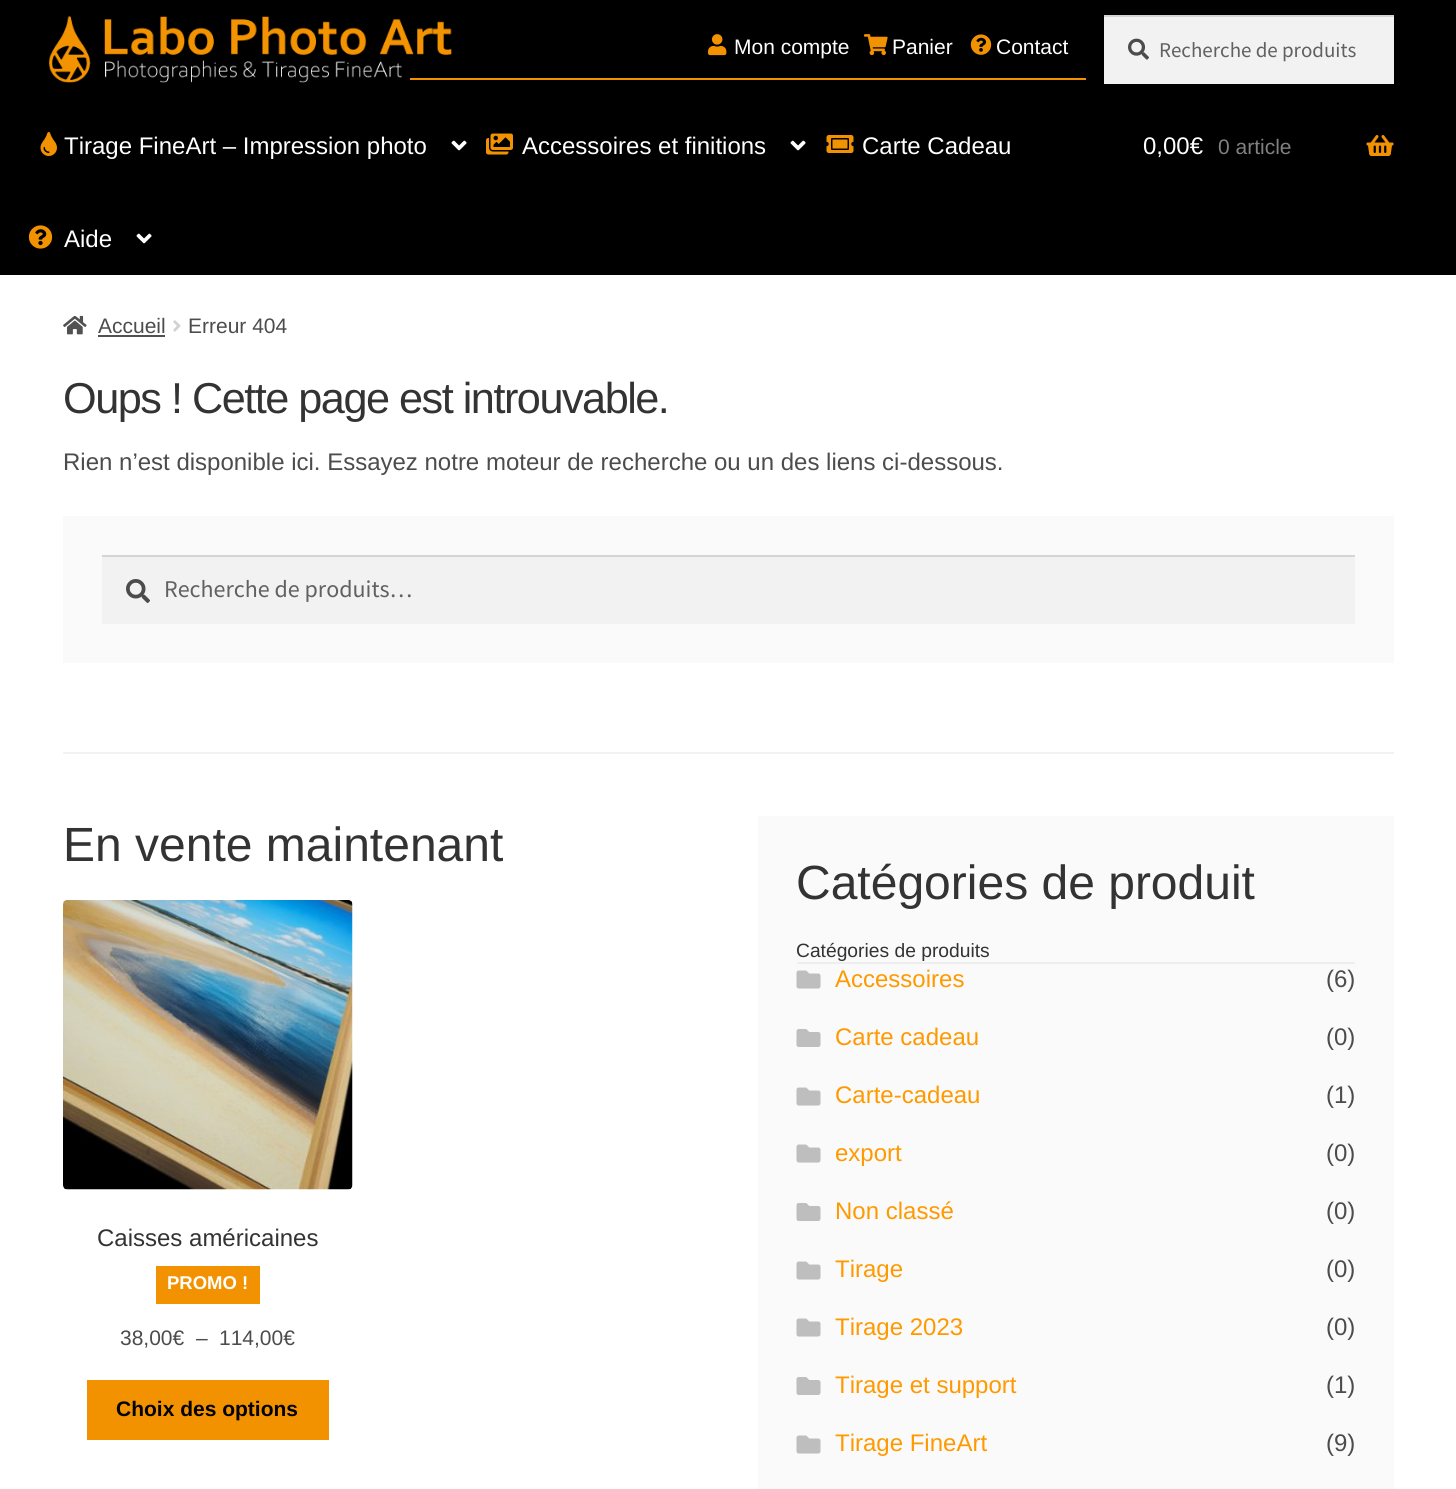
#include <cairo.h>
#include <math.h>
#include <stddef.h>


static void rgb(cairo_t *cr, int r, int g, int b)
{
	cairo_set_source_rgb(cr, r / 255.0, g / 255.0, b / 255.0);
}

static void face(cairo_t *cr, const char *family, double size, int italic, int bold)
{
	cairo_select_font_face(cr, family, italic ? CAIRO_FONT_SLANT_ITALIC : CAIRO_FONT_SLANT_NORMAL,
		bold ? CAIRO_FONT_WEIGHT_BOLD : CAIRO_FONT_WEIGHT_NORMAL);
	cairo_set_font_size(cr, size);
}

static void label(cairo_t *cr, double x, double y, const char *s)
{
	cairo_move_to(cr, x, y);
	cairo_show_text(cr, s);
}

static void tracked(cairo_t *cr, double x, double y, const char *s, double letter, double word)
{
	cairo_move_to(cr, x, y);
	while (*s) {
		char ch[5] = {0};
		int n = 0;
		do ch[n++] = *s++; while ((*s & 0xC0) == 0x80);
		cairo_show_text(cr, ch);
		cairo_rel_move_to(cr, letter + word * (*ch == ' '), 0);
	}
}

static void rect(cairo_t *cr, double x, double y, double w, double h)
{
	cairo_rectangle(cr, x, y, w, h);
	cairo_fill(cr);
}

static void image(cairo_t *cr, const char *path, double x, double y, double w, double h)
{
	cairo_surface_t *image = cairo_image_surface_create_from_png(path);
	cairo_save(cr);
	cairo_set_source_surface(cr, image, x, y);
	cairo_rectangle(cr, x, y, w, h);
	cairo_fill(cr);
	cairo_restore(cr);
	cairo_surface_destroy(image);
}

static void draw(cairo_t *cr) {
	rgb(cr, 255, 255, 255);
	cairo_paint(cr);
	rgb(cr, 0, 0, 0);
	rect(cr, 0, 0, 1456, 275);
	image(cr, "image0.png", 48, 15, 404, 68);
	rgb(cr, 243, 146, 0);
	rect(cr, 410, 78, 676, 2);
	image(cr, "image1.png", 708, 34, 19, 22);
	face(cr, "Liberation Sans", 21, 0, 0);
	rgb(cr, 255, 255, 255);
	label(cr, 734, 54, "Mon compte");
	image(cr, "image2.png", 864, 34, 24, 22);
	label(cr, 892, 54, "Panier");
	image(cr, "image3.png", 970, 34, 22, 21);
	label(cr, 996, 54, "Contact");
	rgb(cr, 242, 242, 242);
	rect(cr, 1104, 17, 290, 67);
	image(cr, "image4.png", 1128, 38, 21, 22);
	rgb(cr, 212, 212, 212);
	rect(cr, 1104, 15, 290, 2);
	face(cr, "Source Sans Pro", 21, 0, 0);
	rgb(cr, 97, 97, 97);
	label(cr, 1159, 57, "Recherche de produits");
	image(cr, "image5.png", 40, 132, 17, 24);
	face(cr, "Liberation Sans", 24, 0, 0);
	rgb(cr, 255, 255, 255);
	label(cr, 64, 154, "Tirage FineArt – Impression photo");
	image(cr, "image6.png", 451, 140, 16, 11);
	image(cr, "image7.png", 486, 133, 27, 22);
	label(cr, 522, 154, "Accessoires et finitions");
	image(cr, "image6.png", 790, 140, 16, 11);
	image(cr, "image8.png", 826, 135, 28, 18);
	label(cr, 862, 154, "Carte Cadeau");
	image(cr, "image9.png", 28, 225, 25, 24);
	label(cr, 64, 247, "Aide");
	image(cr, "image6.png", 136, 233, 16, 11);
	label(cr, 1143, 154, "0,00€");
	face(cr, "Liberation Sans", 21, 0, 0);
	rgb(cr, 128, 128, 128);
	label(cr, 1218, 154, "0 article");
	image(cr, "image10.png", 1366, 135, 28, 21);
	image(cr, "image11.png", 63, 315, 24, 20);
	rgb(cr, 76, 76, 76);
	label(cr, 98, 333, "Accueil");
	rgb(cr, 81, 81, 81);
	rect(cr, 98, 335, 67, 2);
	image(cr, "image12.png", 173, 320, 8, 12);
	rgb(cr, 76, 76, 76);
	label(cr, 188, 333, "Erreur 404");
	face(cr, "Liberation Sans", 43.25, 0, 0);
	rgb(cr, 51, 51, 51);
	tracked(cr, 63, 413, "Oups ! Cette page est introuvable.", -1.5, 0);
	face(cr, "Liberation Sans", 24, 0, 0);
	rgb(cr, 76, 76, 76);
	label(cr, 63, 470, "Rien n’est disponible ici. Essayez notre moteur de recherche ou un des liens ci-dessous.");
	rgb(cr, 250, 250, 250);
	rect(cr, 63, 516, 1331, 147);
	rgb(cr, 242, 242, 242);
	rect(cr, 102, 557, 1253, 67);
	image(cr, "image13.png", 126, 579, 24, 24);
	rgb(cr, 212, 212, 212);
	rect(cr, 102, 555, 1253, 2);
	face(cr, "Source Sans Pro", 24, 0, 0);
	rgb(cr, 97, 97, 97);
	label(cr, 164, 597, "Recherche de produits…");
	rgb(cr, 242, 242, 242);
	rect(cr, 63, 752, 1331, 2);
	face(cr, "Liberation Sans", 48, 0, 0);
	rgb(cr, 51, 51, 51);
	label(cr, 63, 861, "En vente maintenant");
	image(cr, "image14.png", 63, 900, 290, 290);
	face(cr, "Liberation Sans", 24, 0, 0);
	label(cr, 97, 1246, "Caisses américaines");
	rgb(cr, 243, 146, 0);
	rect(cr, 156, 1266, 104, 38);
	face(cr, "Liberation Sans", 18.5, 0, 1);
	rgb(cr, 255, 255, 255);
	label(cr, 167, 1289, "PROMO !");
	face(cr, "Liberation Sans", 21, 0, 0);
	rgb(cr, 76, 76, 76);
	label(cr, 120, 1345, "38,00€");
	label(cr, 196, 1345, "–");
	label(cr, 219, 1345, "114,00€");
	rgb(cr, 243, 146, 0);
	rect(cr, 87, 1380, 242, 60);
	face(cr, "Liberation Sans", 21, 0, 1);
	rgb(cr, 2, 2, 2);
	label(cr, 116, 1416, "Choix des options");
	rgb(cr, 250, 250, 250);
	rect(cr, 758, 816, 636, 673);
	face(cr, "Liberation Sans", 48, 0, 0);
	rgb(cr, 51, 51, 51);
	label(cr, 796, 899, "Catégories de produit");
	rgb(cr, 238, 238, 238);
	rect(cr, 797, 962, 558, 2);
	face(cr, "Liberation Sans", 19.25, 0, 0);
	rgb(cr, 51, 51, 51);
	label(cr, 796, 957, "Catégories de produits");
	image(cr, "image15.png", 796, 970, 25, 19);
	face(cr, "Liberation Sans", 24, 0, 0);
	rgb(cr, 255, 153, 0);
	label(cr, 835, 987, "Accessoires");
	rgb(cr, 76, 76, 76);
	label(cr, 1326, 987, "(6)");
	image(cr, "image16.png", 796, 1029, 25, 18);
	rgb(cr, 255, 153, 0);
	label(cr, 835, 1045, "Carte cadeau");
	rgb(cr, 76, 76, 76);
	label(cr, 1326, 1045, "(0)");
	image(cr, "image15.png", 796, 1087, 25, 19);
	rgb(cr, 255, 153, 0);
	label(cr, 835, 1103, "Carte-cadeau");
	rgb(cr, 76, 76, 76);
	label(cr, 1326, 1103, "(1)");
	image(cr, "image15.png", 796, 1144, 25, 19);
	rgb(cr, 255, 153, 0);
	label(cr, 835, 1161, "export");
	rgb(cr, 76, 76, 76);
	label(cr, 1326, 1161, "(0)");
	image(cr, "image16.png", 796, 1203, 25, 18);
	rgb(cr, 255, 153, 0);
	label(cr, 835, 1219, "Non classé");
	rgb(cr, 76, 76, 76);
	label(cr, 1326, 1219, "(0)");
	image(cr, "image15.png", 796, 1261, 25, 19);
	rgb(cr, 255, 153, 0);
	label(cr, 835, 1277, "Tirage");
	rgb(cr, 76, 76, 76);
	label(cr, 1326, 1277, "(0)");
	image(cr, "image15.png", 796, 1318, 25, 19);
	rgb(cr, 255, 153, 0);
	label(cr, 835, 1335, "Tirage 2023");
	rgb(cr, 76, 76, 76);
	label(cr, 1326, 1335, "(0)");
	image(cr, "image16.png", 796, 1377, 25, 18);
	rgb(cr, 255, 153, 0);
	label(cr, 835, 1393, "Tirage et support");
	rgb(cr, 76, 76, 76);
	label(cr, 1326, 1393, "(1)");
	image(cr, "image15.png", 796, 1435, 25, 19);
	rgb(cr, 255, 153, 0);
	label(cr, 835, 1451, "Tirage FineArt");
	rgb(cr, 76, 76, 76);
	label(cr, 1326, 1451, "(9)");
}

int main(void) {
	cairo_surface_t *surface = cairo_image_surface_create(CAIRO_FORMAT_RGB24, 1456, 1489);
	cairo_t *cr = cairo_create(surface);
	cairo_font_options_t *options = cairo_font_options_create();
	cairo_font_options_set_hint_metrics(options, CAIRO_HINT_METRICS_OFF);
	cairo_font_options_set_hint_style(options, CAIRO_HINT_STYLE_NONE);
	cairo_set_font_options(cr, options);
	cairo_set_miter_limit(cr, 4);
	draw(cr);
	cairo_surface_write_to_png(surface, "render.png");
	cairo_font_options_destroy(options);
	cairo_destroy(cr);
	cairo_surface_destroy(surface);
	return 0;
}
